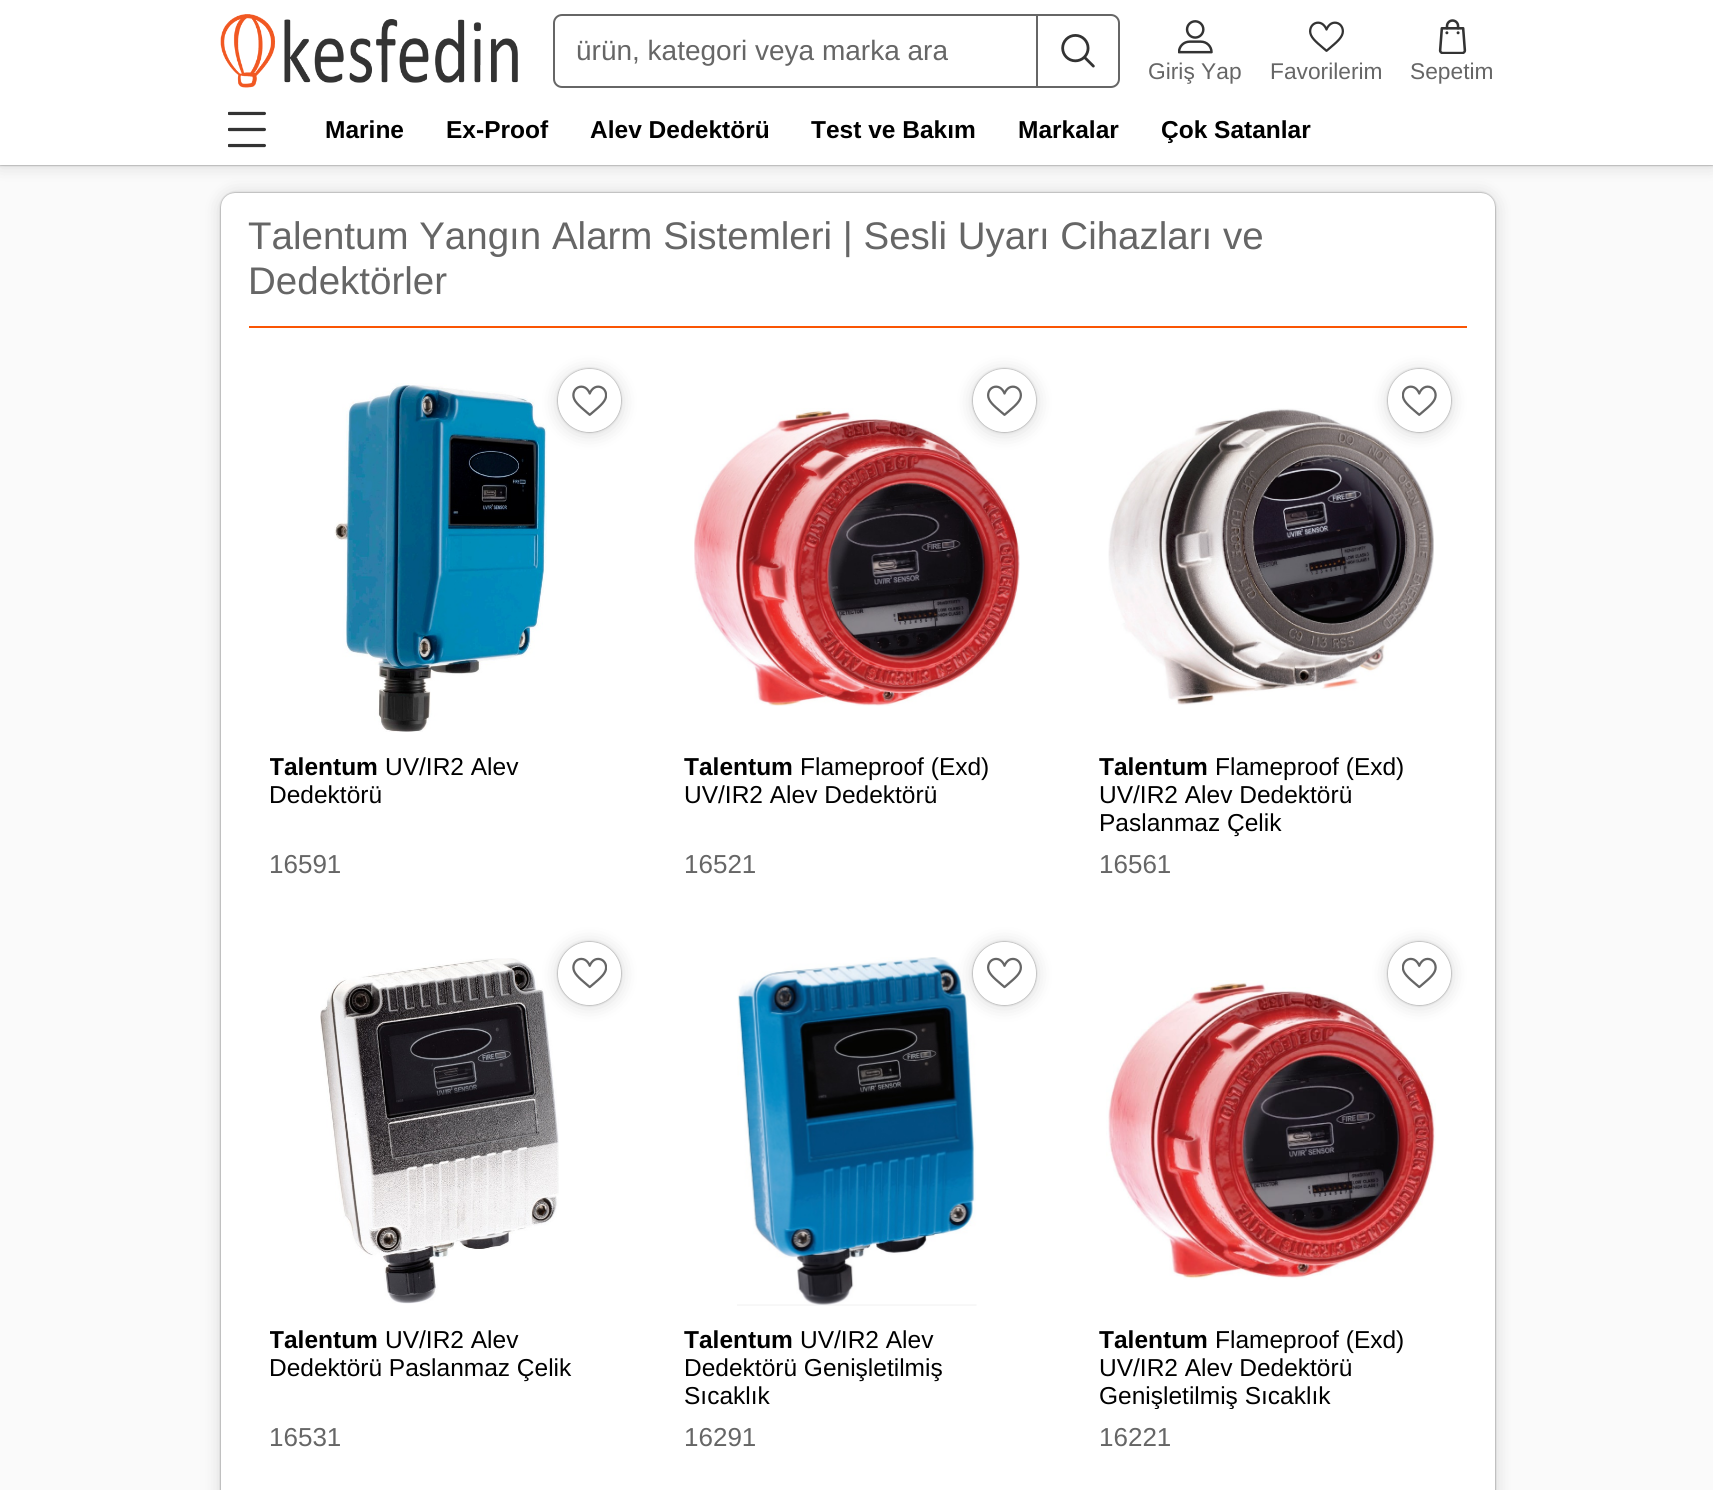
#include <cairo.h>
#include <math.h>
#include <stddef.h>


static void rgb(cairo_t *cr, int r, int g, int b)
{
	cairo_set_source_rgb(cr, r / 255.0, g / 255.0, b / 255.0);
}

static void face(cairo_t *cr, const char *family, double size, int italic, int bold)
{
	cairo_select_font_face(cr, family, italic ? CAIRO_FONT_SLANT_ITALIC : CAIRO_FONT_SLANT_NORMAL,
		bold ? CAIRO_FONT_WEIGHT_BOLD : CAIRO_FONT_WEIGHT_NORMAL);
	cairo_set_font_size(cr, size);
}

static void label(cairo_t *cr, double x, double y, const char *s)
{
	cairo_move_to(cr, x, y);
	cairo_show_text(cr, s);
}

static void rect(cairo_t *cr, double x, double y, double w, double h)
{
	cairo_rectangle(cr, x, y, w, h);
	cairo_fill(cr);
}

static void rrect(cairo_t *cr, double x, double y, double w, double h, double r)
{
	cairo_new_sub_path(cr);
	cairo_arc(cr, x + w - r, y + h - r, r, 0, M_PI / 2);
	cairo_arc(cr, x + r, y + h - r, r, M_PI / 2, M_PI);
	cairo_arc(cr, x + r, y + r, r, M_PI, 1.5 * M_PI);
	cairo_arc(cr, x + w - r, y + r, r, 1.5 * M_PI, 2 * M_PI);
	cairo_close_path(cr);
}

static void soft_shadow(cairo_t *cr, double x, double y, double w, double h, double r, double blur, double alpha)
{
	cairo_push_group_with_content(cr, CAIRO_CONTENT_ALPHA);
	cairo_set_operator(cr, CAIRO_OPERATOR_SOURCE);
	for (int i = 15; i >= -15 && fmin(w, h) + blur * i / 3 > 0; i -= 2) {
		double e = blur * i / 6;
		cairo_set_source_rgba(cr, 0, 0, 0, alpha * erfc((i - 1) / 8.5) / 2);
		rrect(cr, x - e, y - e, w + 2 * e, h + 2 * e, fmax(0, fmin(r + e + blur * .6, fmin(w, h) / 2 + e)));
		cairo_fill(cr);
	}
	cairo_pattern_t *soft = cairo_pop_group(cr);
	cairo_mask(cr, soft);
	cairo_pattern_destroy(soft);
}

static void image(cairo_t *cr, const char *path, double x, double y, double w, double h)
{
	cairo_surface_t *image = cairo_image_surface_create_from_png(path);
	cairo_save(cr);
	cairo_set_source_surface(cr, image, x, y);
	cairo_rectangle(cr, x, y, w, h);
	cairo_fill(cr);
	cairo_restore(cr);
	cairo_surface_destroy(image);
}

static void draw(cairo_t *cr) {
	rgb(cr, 250, 250, 250);
	cairo_paint(cr);
	rgb(cr, 0, 0, 0);
	soft_shadow(cr, 0, 0, 1713, 165, 0, 9, 0.15);
	soft_shadow(cr, 0, 0, 1713, 165, 0, 1, 0.5);
	rgb(cr, 255, 255, 255);
	rect(cr, 0, 0, 1713, 165);
	image(cr, "image0.png", 220, 14, 298, 74);
	rrect(cr, 554, 15, 565, 72, 8);
	rgb(cr, 102, 102, 102);
	cairo_stroke(cr);
	face(cr, "Liberation Sans", 28, 0, 0);
	label(cr, 576, 60, "ürün, kategori veya marka ara");
	image(cr, "image1.png", 1061, 34, 34, 34);
	rect(cr, 1036, 16, 2, 70);
	image(cr, "image2.png", 1178, 20, 35, 34);
	face(cr, "Liberation Sans", 22.75, 0, 0);
	label(cr, 1148, 79, "Giriş Yap");
	image(cr, "image3.png", 1309, 21, 35, 31);
	label(cr, 1270, 79, "Favorilerim");
	image(cr, "image4.png", 1438, 19, 29, 35);
	label(cr, 1410, 79, "Sepetim");
	image(cr, "image5.png", 228, 111, 38, 37);
	face(cr, "Liberation Sans", 24.5, 0, 1);
	rgb(cr, 0, 0, 0);
	label(cr, 325, 138, "Marine");
	label(cr, 446, 138, "Ex-Proof");
	label(cr, 590, 138, "Alev Dedektörü");
	label(cr, 811, 138, "Test ve Bakım");
	label(cr, 1018, 138, "Markalar");
	label(cr, 1161, 138, "Çok Satanlar");
	rgb(cr, 0, 0, 0);
	soft_shadow(cr, 221, 194, 1274, 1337, 14, 9, 0.15);
	soft_shadow(cr, 221, 193, 1274, 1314, 14, 1, 0.5);
	rgb(cr, 255, 255, 255);
	rrect(cr, 221, 193, 1274, 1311, 14);
	cairo_fill(cr);
	rgb(cr, 250, 85, 4);
	rect(cr, 249, 326, 1218, 2);
	face(cr, "Liberation Sans", 38.5, 0, 0);
	rgb(cr, 102, 102, 102);
	label(cr, 248, 249, "Talentum Yangın Alarm Sistemleri | Sesli Uyarı Cihazları ve");
	label(cr, 248, 294, "Dedektörler");
	image(cr, "image7.png", 334, 383, 213, 349);
	cairo_save(cr);
	cairo_set_fill_rule(cr, CAIRO_FILL_RULE_EVEN_ODD);
	cairo_new_path(cr);
	cairo_move_to(cr, 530, 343);
	cairo_line_to(cr, 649, 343);
	cairo_line_to(cr, 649, 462);
	cairo_line_to(cr, 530, 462);
	cairo_close_path(cr);
	cairo_move_to(cr, 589.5, 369);
	cairo_curve_to(cr, 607, 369, 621, 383, 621, 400.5);
	cairo_curve_to(cr, 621, 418, 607, 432, 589.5, 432);
	cairo_curve_to(cr, 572, 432, 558, 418, 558, 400.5);
	cairo_curve_to(cr, 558, 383, 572, 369, 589.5, 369);
	cairo_close_path(cr);
	cairo_clip(cr);
	rgb(cr, 0, 0, 0);
	soft_shadow(cr, 558, 371, 63, 63, 31.5, 9, 0.15);
	cairo_restore(cr);
	cairo_save(cr);
	cairo_set_fill_rule(cr, CAIRO_FILL_RULE_EVEN_ODD);
	cairo_new_path(cr);
	cairo_move_to(cr, 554, 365);
	cairo_line_to(cr, 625, 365);
	cairo_line_to(cr, 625, 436);
	cairo_line_to(cr, 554, 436);
	cairo_close_path(cr);
	cairo_move_to(cr, 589.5, 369);
	cairo_curve_to(cr, 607, 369, 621, 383, 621, 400.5);
	cairo_curve_to(cr, 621, 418, 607, 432, 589.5, 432);
	cairo_curve_to(cr, 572, 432, 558, 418, 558, 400.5);
	cairo_curve_to(cr, 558, 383, 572, 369, 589.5, 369);
	cairo_close_path(cr);
	cairo_clip(cr);
	rgb(cr, 0, 0, 0);
	soft_shadow(cr, 558, 369, 63, 63, 31.5, 1, 0.5);
	cairo_restore(cr);
	image(cr, "image6.png", 572, 385, 35, 31);
	cairo_save(cr);
	cairo_rectangle(cr, 270, 753, 344, 84);
	cairo_clip(cr);
	face(cr, "Liberation Sans", 24.5, 0, 1);
	rgb(cr, 0, 0, 0);
	label(cr, 269, 775, "Talentum");
	cairo_restore(cr);
	face(cr, "Liberation Sans", 24.5, 0, 0);
	rgb(cr, 0, 0, 0);
	label(cr, 385, 775, "UV/IR2 Alev");
	label(cr, 269, 803, "Dedektörü");
	face(cr, "Liberation Sans", 26, 0, 0);
	rgb(cr, 102, 102, 102);
	label(cr, 269, 873, "16591");
	image(cr, "image9.png", 694, 408, 326, 298);
	cairo_save(cr);
	cairo_set_fill_rule(cr, CAIRO_FILL_RULE_EVEN_ODD);
	cairo_new_path(cr);
	cairo_move_to(cr, 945, 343);
	cairo_line_to(cr, 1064, 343);
	cairo_line_to(cr, 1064, 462);
	cairo_line_to(cr, 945, 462);
	cairo_close_path(cr);
	cairo_move_to(cr, 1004.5, 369);
	cairo_curve_to(cr, 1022, 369, 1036, 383, 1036, 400.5);
	cairo_curve_to(cr, 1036, 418, 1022, 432, 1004.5, 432);
	cairo_curve_to(cr, 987, 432, 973, 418, 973, 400.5);
	cairo_curve_to(cr, 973, 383, 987, 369, 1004.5, 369);
	cairo_close_path(cr);
	cairo_clip(cr);
	rgb(cr, 0, 0, 0);
	soft_shadow(cr, 973, 371, 63, 63, 31.5, 9, 0.15);
	cairo_restore(cr);
	cairo_save(cr);
	cairo_set_fill_rule(cr, CAIRO_FILL_RULE_EVEN_ODD);
	cairo_new_path(cr);
	cairo_move_to(cr, 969, 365);
	cairo_line_to(cr, 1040, 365);
	cairo_line_to(cr, 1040, 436);
	cairo_line_to(cr, 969, 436);
	cairo_close_path(cr);
	cairo_move_to(cr, 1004.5, 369);
	cairo_curve_to(cr, 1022, 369, 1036, 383, 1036, 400.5);
	cairo_curve_to(cr, 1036, 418, 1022, 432, 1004.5, 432);
	cairo_curve_to(cr, 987, 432, 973, 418, 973, 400.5);
	cairo_curve_to(cr, 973, 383, 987, 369, 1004.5, 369);
	cairo_close_path(cr);
	cairo_clip(cr);
	rgb(cr, 0, 0, 0);
	soft_shadow(cr, 973, 369, 63, 63, 31.5, 1, 0.5);
	cairo_restore(cr);
	image(cr, "image8.png", 987, 385, 35, 31);
	face(cr, "Liberation Sans", 24.5, 0, 1);
	rgb(cr, 0, 0, 0);
	label(cr, 684, 775, "Talentum");
	face(cr, "Liberation Sans", 24.5, 0, 0);
	label(cr, 800, 775, "Flameproof (Exd)");
	label(cr, 684, 803, "UV/IR2 Alev Dedektörü");
	face(cr, "Liberation Sans", 26, 0, 0);
	rgb(cr, 102, 102, 102);
	label(cr, 684, 873, "16521");
	image(cr, "image11.png", 1108, 408, 326, 297);
	cairo_save(cr);
	cairo_set_fill_rule(cr, CAIRO_FILL_RULE_EVEN_ODD);
	cairo_new_path(cr);
	cairo_move_to(cr, 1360, 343);
	cairo_line_to(cr, 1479, 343);
	cairo_line_to(cr, 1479, 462);
	cairo_line_to(cr, 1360, 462);
	cairo_close_path(cr);
	cairo_move_to(cr, 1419.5, 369);
	cairo_curve_to(cr, 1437, 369, 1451, 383, 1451, 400.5);
	cairo_curve_to(cr, 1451, 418, 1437, 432, 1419.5, 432);
	cairo_curve_to(cr, 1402, 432, 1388, 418, 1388, 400.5);
	cairo_curve_to(cr, 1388, 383, 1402, 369, 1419.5, 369);
	cairo_close_path(cr);
	cairo_clip(cr);
	rgb(cr, 0, 0, 0);
	soft_shadow(cr, 1388, 371, 63, 63, 31.5, 9, 0.15);
	cairo_restore(cr);
	cairo_save(cr);
	cairo_set_fill_rule(cr, CAIRO_FILL_RULE_EVEN_ODD);
	cairo_new_path(cr);
	cairo_move_to(cr, 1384, 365);
	cairo_line_to(cr, 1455, 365);
	cairo_line_to(cr, 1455, 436);
	cairo_line_to(cr, 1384, 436);
	cairo_close_path(cr);
	cairo_move_to(cr, 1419.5, 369);
	cairo_curve_to(cr, 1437, 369, 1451, 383, 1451, 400.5);
	cairo_curve_to(cr, 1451, 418, 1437, 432, 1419.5, 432);
	cairo_curve_to(cr, 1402, 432, 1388, 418, 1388, 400.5);
	cairo_curve_to(cr, 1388, 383, 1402, 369, 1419.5, 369);
	cairo_close_path(cr);
	cairo_clip(cr);
	rgb(cr, 0, 0, 0);
	soft_shadow(cr, 1388, 369, 63, 63, 31.5, 1, 0.5);
	cairo_restore(cr);
	image(cr, "image10.png", 1402, 385, 35, 31);
	face(cr, "Liberation Sans", 24.5, 0, 1);
	rgb(cr, 0, 0, 0);
	label(cr, 1099, 775, "Talentum");
	face(cr, "Liberation Sans", 24.5, 0, 0);
	label(cr, 1215, 775, "Flameproof (Exd)");
	label(cr, 1099, 803, "UV/IR2 Alev Dedektörü");
	label(cr, 1099, 831, "Paslanmaz Çelik");
	face(cr, "Liberation Sans", 26, 0, 0);
	rgb(cr, 102, 102, 102);
	label(cr, 1099, 873, "16561");
	image(cr, "image13.png", 320, 958, 239, 346);
	cairo_save(cr);
	cairo_set_fill_rule(cr, CAIRO_FILL_RULE_EVEN_ODD);
	cairo_new_path(cr);
	cairo_move_to(cr, 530, 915);
	cairo_line_to(cr, 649, 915);
	cairo_line_to(cr, 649, 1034);
	cairo_line_to(cr, 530, 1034);
	cairo_close_path(cr);
	cairo_move_to(cr, 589.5, 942);
	cairo_curve_to(cr, 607, 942, 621, 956, 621, 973.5);
	cairo_curve_to(cr, 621, 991, 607, 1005, 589.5, 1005);
	cairo_curve_to(cr, 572, 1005, 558, 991, 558, 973.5);
	cairo_curve_to(cr, 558, 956, 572, 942, 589.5, 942);
	cairo_close_path(cr);
	cairo_clip(cr);
	rgb(cr, 0, 0, 0);
	soft_shadow(cr, 558, 943, 63, 63, 31.5, 9, 0.15);
	cairo_restore(cr);
	cairo_save(cr);
	cairo_set_fill_rule(cr, CAIRO_FILL_RULE_EVEN_ODD);
	cairo_new_path(cr);
	cairo_move_to(cr, 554, 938);
	cairo_line_to(cr, 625, 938);
	cairo_line_to(cr, 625, 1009);
	cairo_line_to(cr, 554, 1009);
	cairo_close_path(cr);
	cairo_move_to(cr, 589.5, 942);
	cairo_curve_to(cr, 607, 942, 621, 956, 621, 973.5);
	cairo_curve_to(cr, 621, 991, 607, 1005, 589.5, 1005);
	cairo_curve_to(cr, 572, 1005, 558, 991, 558, 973.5);
	cairo_curve_to(cr, 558, 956, 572, 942, 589.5, 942);
	cairo_close_path(cr);
	cairo_clip(cr);
	rgb(cr, 0, 0, 0);
	soft_shadow(cr, 558, 942, 63, 63, 31.5, 1, 0.5);
	cairo_restore(cr);
	image(cr, "image12.png", 572, 957, 35, 32);
	cairo_save(cr);
	cairo_rectangle(cr, 270, 1325, 344, 84);
	cairo_clip(cr);
	face(cr, "Liberation Sans", 24.5, 0, 1);
	rgb(cr, 0, 0, 0);
	label(cr, 269, 1348, "Talentum");
	cairo_restore(cr);
	face(cr, "Liberation Sans", 24.5, 0, 0);
	rgb(cr, 0, 0, 0);
	label(cr, 385, 1348, "UV/IR2 Alev");
	label(cr, 269, 1376, "Dedektörü Paslanmaz Çelik");
	face(cr, "Liberation Sans", 26, 0, 0);
	rgb(cr, 102, 102, 102);
	label(cr, 269, 1446, "16531");
	image(cr, "image15.png", 737, 957, 240, 349);
	cairo_save(cr);
	cairo_set_fill_rule(cr, CAIRO_FILL_RULE_EVEN_ODD);
	cairo_new_path(cr);
	cairo_move_to(cr, 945, 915);
	cairo_line_to(cr, 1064, 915);
	cairo_line_to(cr, 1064, 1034);
	cairo_line_to(cr, 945, 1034);
	cairo_close_path(cr);
	cairo_move_to(cr, 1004.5, 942);
	cairo_curve_to(cr, 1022, 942, 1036, 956, 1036, 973.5);
	cairo_curve_to(cr, 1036, 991, 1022, 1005, 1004.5, 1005);
	cairo_curve_to(cr, 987, 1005, 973, 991, 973, 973.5);
	cairo_curve_to(cr, 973, 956, 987, 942, 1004.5, 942);
	cairo_close_path(cr);
	cairo_clip(cr);
	rgb(cr, 0, 0, 0);
	soft_shadow(cr, 973, 943, 63, 63, 31.5, 9, 0.15);
	cairo_restore(cr);
	cairo_save(cr);
	cairo_set_fill_rule(cr, CAIRO_FILL_RULE_EVEN_ODD);
	cairo_new_path(cr);
	cairo_move_to(cr, 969, 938);
	cairo_line_to(cr, 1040, 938);
	cairo_line_to(cr, 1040, 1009);
	cairo_line_to(cr, 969, 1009);
	cairo_close_path(cr);
	cairo_move_to(cr, 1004.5, 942);
	cairo_curve_to(cr, 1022, 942, 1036, 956, 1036, 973.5);
	cairo_curve_to(cr, 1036, 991, 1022, 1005, 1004.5, 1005);
	cairo_curve_to(cr, 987, 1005, 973, 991, 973, 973.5);
	cairo_curve_to(cr, 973, 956, 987, 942, 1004.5, 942);
	cairo_close_path(cr);
	cairo_clip(cr);
	rgb(cr, 0, 0, 0);
	soft_shadow(cr, 973, 942, 63, 63, 31.5, 1, 0.5);
	cairo_restore(cr);
	image(cr, "image14.png", 987, 957, 35, 32);
	face(cr, "Liberation Sans", 24.5, 0, 1);
	rgb(cr, 0, 0, 0);
	label(cr, 684, 1348, "Talentum");
	face(cr, "Liberation Sans", 24.5, 0, 0);
	label(cr, 800, 1348, "UV/IR2 Alev");
	label(cr, 684, 1376, "Dedektörü Genişletilmiş");
	label(cr, 684, 1404, "Sıcaklık");
	face(cr, "Liberation Sans", 26, 0, 0);
	rgb(cr, 102, 102, 102);
	label(cr, 684, 1446, "16291");
	image(cr, "image17.png", 1106, 980, 330, 300);
	cairo_save(cr);
	cairo_set_fill_rule(cr, CAIRO_FILL_RULE_EVEN_ODD);
	cairo_new_path(cr);
	cairo_move_to(cr, 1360, 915);
	cairo_line_to(cr, 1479, 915);
	cairo_line_to(cr, 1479, 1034);
	cairo_line_to(cr, 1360, 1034);
	cairo_close_path(cr);
	cairo_move_to(cr, 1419.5, 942);
	cairo_curve_to(cr, 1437, 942, 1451, 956, 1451, 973.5);
	cairo_curve_to(cr, 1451, 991, 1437, 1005, 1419.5, 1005);
	cairo_curve_to(cr, 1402, 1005, 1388, 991, 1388, 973.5);
	cairo_curve_to(cr, 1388, 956, 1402, 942, 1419.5, 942);
	cairo_close_path(cr);
	cairo_clip(cr);
	rgb(cr, 0, 0, 0);
	soft_shadow(cr, 1388, 943, 63, 63, 31.5, 9, 0.15);
	cairo_restore(cr);
	cairo_save(cr);
	cairo_set_fill_rule(cr, CAIRO_FILL_RULE_EVEN_ODD);
	cairo_new_path(cr);
	cairo_move_to(cr, 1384, 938);
	cairo_line_to(cr, 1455, 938);
	cairo_line_to(cr, 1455, 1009);
	cairo_line_to(cr, 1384, 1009);
	cairo_close_path(cr);
	cairo_move_to(cr, 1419.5, 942);
	cairo_curve_to(cr, 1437, 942, 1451, 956, 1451, 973.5);
	cairo_curve_to(cr, 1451, 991, 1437, 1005, 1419.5, 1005);
	cairo_curve_to(cr, 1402, 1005, 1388, 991, 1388, 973.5);
	cairo_curve_to(cr, 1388, 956, 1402, 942, 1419.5, 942);
	cairo_close_path(cr);
	cairo_clip(cr);
	rgb(cr, 0, 0, 0);
	soft_shadow(cr, 1388, 942, 63, 63, 31.5, 1, 0.5);
	cairo_restore(cr);
	image(cr, "image16.png", 1402, 957, 35, 32);
	face(cr, "Liberation Sans", 24.5, 0, 1);
	rgb(cr, 0, 0, 0);
	label(cr, 1099, 1348, "Talentum");
	face(cr, "Liberation Sans", 24.5, 0, 0);
	label(cr, 1215, 1348, "Flameproof (Exd)");
	label(cr, 1099, 1376, "UV/IR2 Alev Dedektörü");
	cairo_save(cr);
	cairo_rectangle(cr, 1099, 1325, 345, 84);
	cairo_clip(cr);
	label(cr, 1099, 1404, "Genişletilmiş Sıcaklık");
	cairo_restore(cr);
	face(cr, "Liberation Sans", 26, 0, 0);
	rgb(cr, 102, 102, 102);
	label(cr, 1099, 1446, "16221");
}

int main(void) {
	cairo_surface_t *surface = cairo_image_surface_create(CAIRO_FORMAT_RGB24, 1713, 1490);
	cairo_t *cr = cairo_create(surface);
	cairo_font_options_t *options = cairo_font_options_create();
	cairo_font_options_set_hint_metrics(options, CAIRO_HINT_METRICS_OFF);
	cairo_font_options_set_hint_style(options, CAIRO_HINT_STYLE_NONE);
	cairo_set_font_options(cr, options);
	cairo_set_miter_limit(cr, 4);
	draw(cr);
	cairo_surface_write_to_png(surface, "render.png");
	cairo_font_options_destroy(options);
	cairo_destroy(cr);
	cairo_surface_destroy(surface);
	return 0;
}
